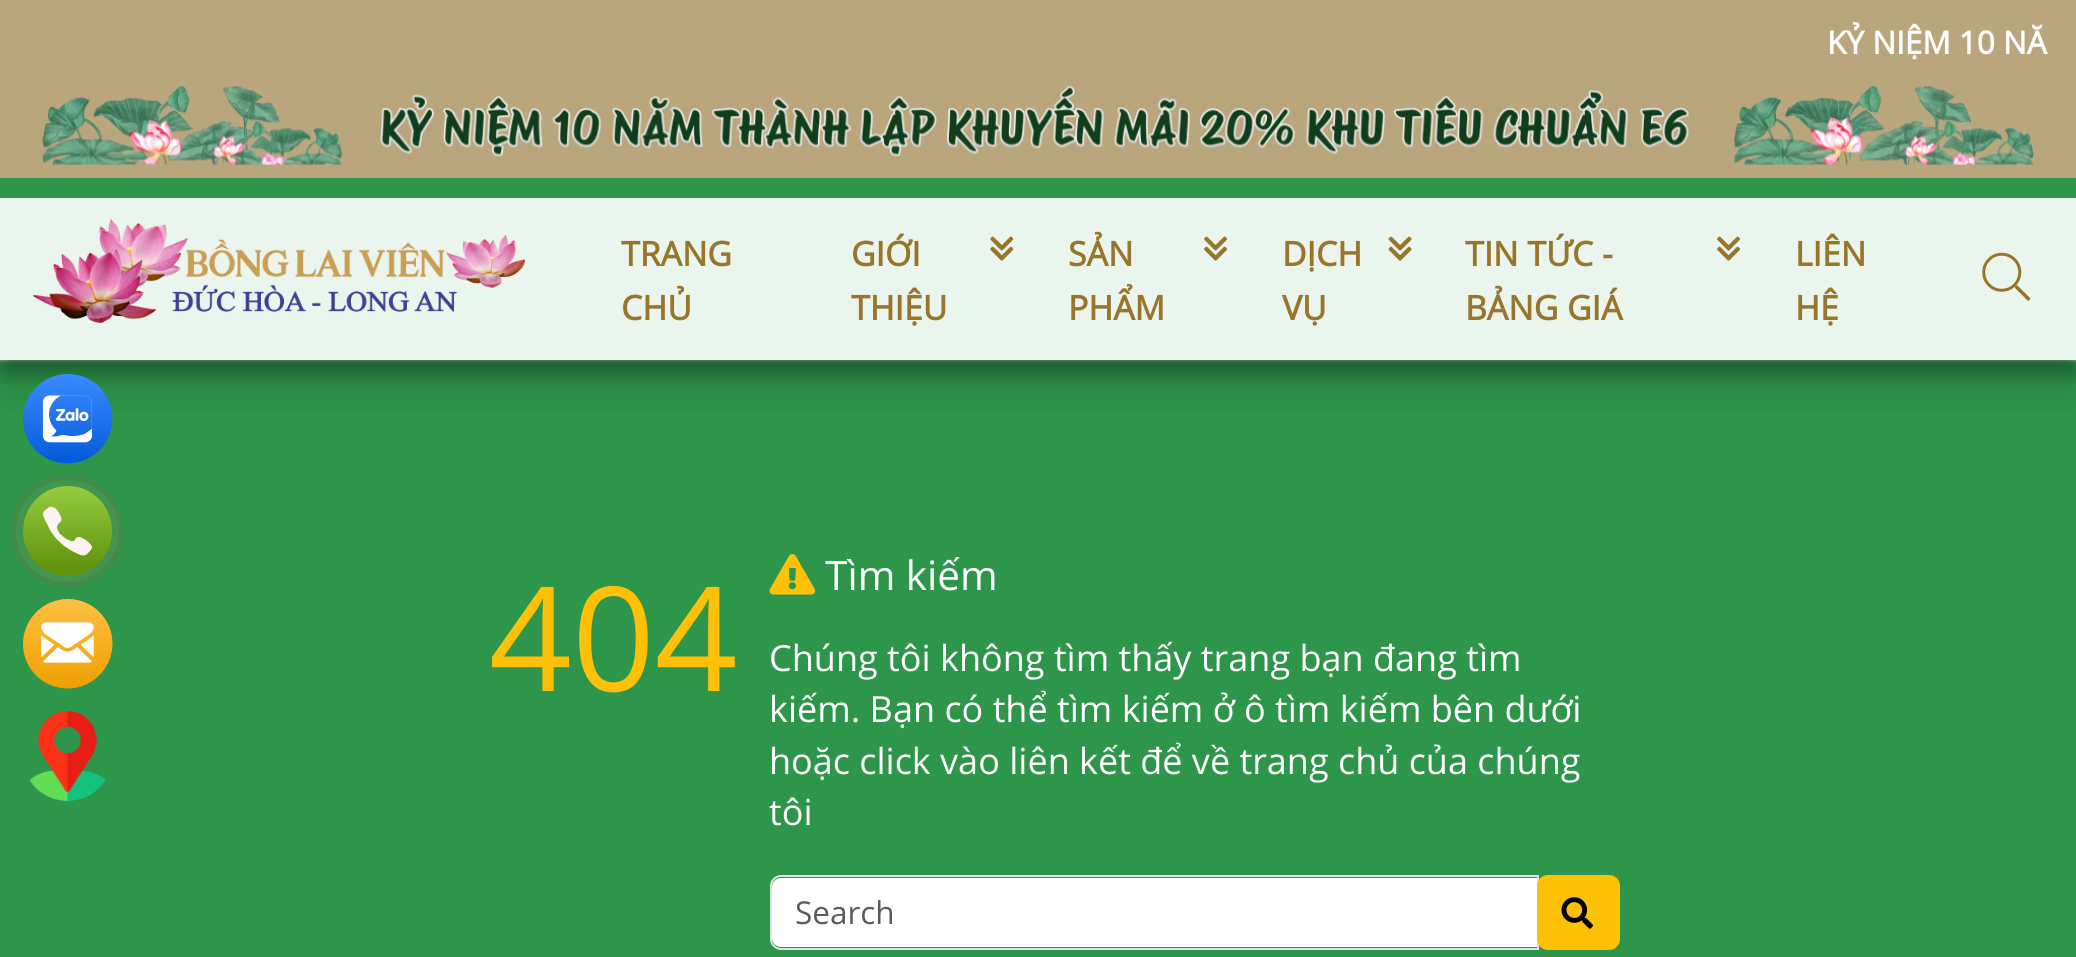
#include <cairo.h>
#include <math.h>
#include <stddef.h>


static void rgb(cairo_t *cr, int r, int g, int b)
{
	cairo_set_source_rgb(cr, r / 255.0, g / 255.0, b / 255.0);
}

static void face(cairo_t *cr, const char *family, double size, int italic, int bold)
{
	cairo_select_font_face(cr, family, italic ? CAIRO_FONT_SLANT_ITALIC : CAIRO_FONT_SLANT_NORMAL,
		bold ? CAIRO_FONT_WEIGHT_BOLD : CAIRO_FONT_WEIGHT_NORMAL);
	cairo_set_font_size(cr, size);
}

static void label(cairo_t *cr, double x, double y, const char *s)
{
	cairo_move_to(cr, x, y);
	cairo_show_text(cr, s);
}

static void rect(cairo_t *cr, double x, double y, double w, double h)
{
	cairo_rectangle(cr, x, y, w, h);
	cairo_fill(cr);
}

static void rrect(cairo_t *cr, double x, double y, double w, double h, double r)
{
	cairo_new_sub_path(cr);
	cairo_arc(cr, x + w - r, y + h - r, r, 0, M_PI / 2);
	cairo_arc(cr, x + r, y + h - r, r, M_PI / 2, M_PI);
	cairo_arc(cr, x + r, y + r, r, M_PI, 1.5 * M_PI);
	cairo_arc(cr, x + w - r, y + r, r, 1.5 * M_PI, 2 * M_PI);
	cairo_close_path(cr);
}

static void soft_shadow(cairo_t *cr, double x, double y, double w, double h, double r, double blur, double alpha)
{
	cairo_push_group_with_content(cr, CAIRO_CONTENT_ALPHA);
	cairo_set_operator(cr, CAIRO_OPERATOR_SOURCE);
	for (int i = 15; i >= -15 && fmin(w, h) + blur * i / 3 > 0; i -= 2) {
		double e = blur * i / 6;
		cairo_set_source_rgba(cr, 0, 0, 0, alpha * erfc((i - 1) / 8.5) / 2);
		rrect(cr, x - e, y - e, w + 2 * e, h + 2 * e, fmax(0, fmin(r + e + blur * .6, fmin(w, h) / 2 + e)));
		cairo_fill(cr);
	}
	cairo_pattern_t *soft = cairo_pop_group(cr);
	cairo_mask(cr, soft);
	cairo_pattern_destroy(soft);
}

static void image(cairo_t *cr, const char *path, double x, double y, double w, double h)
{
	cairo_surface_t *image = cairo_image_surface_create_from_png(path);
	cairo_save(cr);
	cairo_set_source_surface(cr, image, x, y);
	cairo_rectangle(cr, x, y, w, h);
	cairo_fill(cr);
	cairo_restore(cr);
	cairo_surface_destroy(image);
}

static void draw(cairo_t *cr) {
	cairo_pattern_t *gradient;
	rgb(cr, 46, 150, 75);
	cairo_paint(cr);
	cairo_save(cr);
	cairo_rectangle(cr, 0, 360, 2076, 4);
	cairo_clip(cr);
	rgb(cr, 223, 223, 223);
	soft_shadow(cr, 0, -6, 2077, 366, 0, 2, 1);
	cairo_restore(cr);
	cairo_save(cr);
	cairo_rectangle(cr, 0, 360, 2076, 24);
	cairo_clip(cr);
	rgb(cr, 0, 0, 0);
	soft_shadow(cr, 0, -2, 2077, 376, 0, 7, 0.23);
	cairo_restore(cr);
	cairo_save(cr);
	cairo_rectangle(cr, 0, 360, 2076, 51);
	cairo_clip(cr);
	rgb(cr, 0, 0, 0);
	soft_shadow(cr, 0, 7, 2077, 376, 0, 22.5, 0.19);
	cairo_restore(cr);
	rgb(cr, 186, 166, 125);
	rect(cr, 0, 0, 2076, 178);
	face(cr, "Open Sans", 31.5, 0, 1);
	rgb(cr, 255, 255, 255);
	label(cr, 1827, 54, "KỶ NIỆM 10 NĂ");
	image(cr, "image0.png", 41, 86, 1993, 79);
	rgb(cr, 234, 245, 237);
	rect(cr, 0, 198, 2076, 162);
	image(cr, "image1.png", 32, 219, 493, 105);
	face(cr, "Open Sans", 33.75, 0, 1);
	rgb(cr, 153, 117, 44);
	label(cr, 621, 266, "TRANG");
	label(cr, 621, 320, "CHỦ");
	label(cr, 851, 266, "GIỚI");
	image(cr, "image2.png", 990, 236, 24, 25);
	label(cr, 851, 320, "THIỆU");
	label(cr, 1068, 266, "SẢN");
	image(cr, "image3.png", 1204, 236, 23, 25);
	label(cr, 1068, 320, "PHẨM");
	label(cr, 1282, 266, "DỊCH");
	image(cr, "image4.png", 1388, 236, 24, 25);
	label(cr, 1282, 320, "VỤ");
	label(cr, 1465, 266, "TIN TỨC -");
	image(cr, "image3.png", 1717, 236, 23, 25);
	label(cr, 1465, 320, "BẢNG GIÁ");
	label(cr, 1795, 266, "LIÊN");
	label(cr, 1795, 320, "HỆ");
	image(cr, "image5.png", 1982, 252, 49, 49);
	image(cr, "image6.png", 23, 374, 90, 90);
	gradient = cairo_pattern_create_linear(68, 486, 68, 569);
	cairo_pattern_add_color_stop_rgba(gradient, 0, 0.541, 0.827, 0.212, 1);
	cairo_pattern_add_color_stop_rgba(gradient, 1, 0.314, 0.588, 0, 1);
	cairo_set_source(cr, gradient);
	cairo_pattern_destroy(gradient);
	cairo_new_path(cr);
	cairo_move_to(cr, 68, 486);
	cairo_curve_to(cr, 92, 486, 112, 506, 112, 531);
	cairo_curve_to(cr, 112, 556, 92, 576, 68, 576);
	cairo_curve_to(cr, 43, 576, 23, 556, 23, 531);
	cairo_curve_to(cr, 23, 506, 43, 486, 68, 486);
	cairo_close_path(cr);
	cairo_fill(cr);
	rgb(cr, 255, 255, 255);
	cairo_set_fill_rule(cr, CAIRO_FILL_RULE_EVEN_ODD);
	cairo_new_path(cr);
	cairo_move_to(cr, 53, 507);
	cairo_curve_to(cr, 56, 508, 59, 512, 60, 515);
	cairo_curve_to(cr, 66, 525, 51, 521, 60, 534);
	cairo_curve_to(cr, 63, 536, 65, 539, 69, 540);
	cairo_curve_to(cr, 77, 544, 73, 537, 79, 537);
	cairo_curve_to(cr, 83, 537, 92, 544, 92, 547);
	cairo_curve_to(cr, 92, 549, 90, 551, 89, 552);
	cairo_curve_to(cr, 85, 557, 82, 556, 76, 553);
	cairo_curve_to(cr, 65, 548, 56, 540, 50, 530);
	cairo_line_to(cr, 45, 520);
	cairo_curve_to(cr, 42, 514, 42, 512, 48, 508);
	cairo_curve_to(cr, 49, 507, 51, 506, 53, 507);
	cairo_close_path(cr);
	cairo_fill(cr);
	cairo_set_source_rgba(cr, 1, 0.514, 0.514, 0.1);
	rrect(cr, 13.5, 477.5, 108, 107, 53.5);
	cairo_fill_preserve(cr);
	rgb(cr, 67, 138, 71);
	cairo_set_line_width(cr, 5);
	cairo_stroke(cr);
	image(cr, "image7.png", 23, 599, 90, 90);
	image(cr, "image8.png", 29, 711, 77, 90);
	face(cr, "Open Sans", 145, 0, 0);
	rgb(cr, 255, 193, 7);
	label(cr, 489, 691, "404");
	image(cr, "image9.png", 769, 554, 47, 41);
	face(cr, "Open Sans", 40.5, 0, 0);
	rgb(cr, 255, 255, 255);
	label(cr, 825, 590, "Tìm kiếm");
	face(cr, "Open Sans", 36, 0, 0);
	label(cr, 769, 671, "Chúng tôi không tìm thấy trang bạn đang tìm");
	label(cr, 769, 722, "kiếm. Bạn có thể tìm kiếm ở ô tìm kiếm bên dưới");
	label(cr, 769, 774, "hoặc click vào liên kết để về trang chủ của chúng");
	label(cr, 769, 825, "tôi");
	cairo_new_path(cr);
	cairo_move_to(cr, 781, 878);
	cairo_line_to(cr, 1537, 878);
	cairo_line_to(cr, 1537, 947);
	cairo_line_to(cr, 781, 947);
	cairo_curve_to(cr, 776, 947, 772, 943, 772, 938);
	cairo_line_to(cr, 772, 887);
	cairo_curve_to(cr, 772, 882, 776, 878, 781, 878);
	cairo_close_path(cr);
	cairo_fill(cr);
	cairo_new_path(cr);
	cairo_move_to(cr, 781, 876);
	cairo_line_to(cr, 1538, 876);
	cairo_line_to(cr, 1538, 949);
	cairo_line_to(cr, 781, 949);
	cairo_curve_to(cr, 775.5, 949, 771, 944.5, 771, 939);
	cairo_line_to(cr, 771, 886);
	cairo_curve_to(cr, 771, 880.5, 775.5, 876, 781, 876);
	cairo_close_path(cr);
	rgb(cr, 222, 226, 230);
	cairo_set_line_width(cr, 2);
	cairo_stroke(cr);
	face(cr, "Open Sans", 31.5, 0, 0);
	rgb(cr, 89, 92, 95);
	label(cr, 795, 924, "Search");
	rgb(cr, 255, 193, 7);
	rrect(cr, 1538, 876, 81, 73, 10);
	cairo_fill_preserve(cr);
	cairo_stroke(cr);
	image(cr, "image10.png", 1561, 897, 32, 32);
}

int main(void) {
	cairo_surface_t *surface = cairo_image_surface_create(CAIRO_FORMAT_RGB24, 2076, 957);
	cairo_t *cr = cairo_create(surface);
	cairo_font_options_t *options = cairo_font_options_create();
	cairo_font_options_set_hint_metrics(options, CAIRO_HINT_METRICS_OFF);
	cairo_font_options_set_hint_style(options, CAIRO_HINT_STYLE_NONE);
	cairo_set_font_options(cr, options);
	cairo_set_miter_limit(cr, 4);
	draw(cr);
	cairo_surface_write_to_png(surface, "render.png");
	cairo_font_options_destroy(options);
	cairo_destroy(cr);
	cairo_surface_destroy(surface);
	return 0;
}
